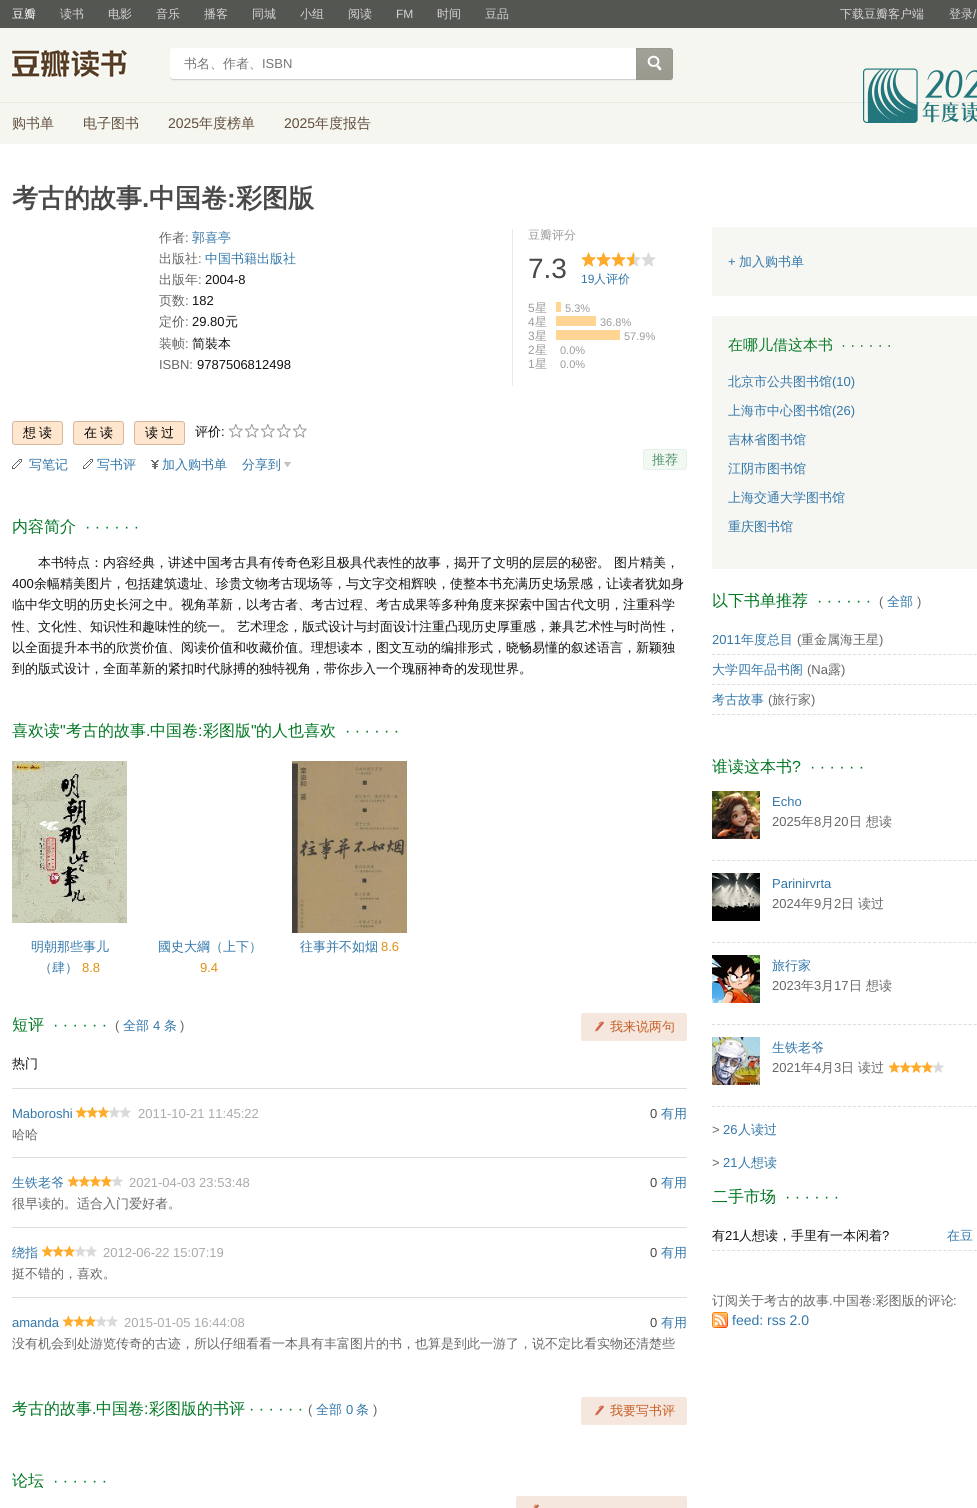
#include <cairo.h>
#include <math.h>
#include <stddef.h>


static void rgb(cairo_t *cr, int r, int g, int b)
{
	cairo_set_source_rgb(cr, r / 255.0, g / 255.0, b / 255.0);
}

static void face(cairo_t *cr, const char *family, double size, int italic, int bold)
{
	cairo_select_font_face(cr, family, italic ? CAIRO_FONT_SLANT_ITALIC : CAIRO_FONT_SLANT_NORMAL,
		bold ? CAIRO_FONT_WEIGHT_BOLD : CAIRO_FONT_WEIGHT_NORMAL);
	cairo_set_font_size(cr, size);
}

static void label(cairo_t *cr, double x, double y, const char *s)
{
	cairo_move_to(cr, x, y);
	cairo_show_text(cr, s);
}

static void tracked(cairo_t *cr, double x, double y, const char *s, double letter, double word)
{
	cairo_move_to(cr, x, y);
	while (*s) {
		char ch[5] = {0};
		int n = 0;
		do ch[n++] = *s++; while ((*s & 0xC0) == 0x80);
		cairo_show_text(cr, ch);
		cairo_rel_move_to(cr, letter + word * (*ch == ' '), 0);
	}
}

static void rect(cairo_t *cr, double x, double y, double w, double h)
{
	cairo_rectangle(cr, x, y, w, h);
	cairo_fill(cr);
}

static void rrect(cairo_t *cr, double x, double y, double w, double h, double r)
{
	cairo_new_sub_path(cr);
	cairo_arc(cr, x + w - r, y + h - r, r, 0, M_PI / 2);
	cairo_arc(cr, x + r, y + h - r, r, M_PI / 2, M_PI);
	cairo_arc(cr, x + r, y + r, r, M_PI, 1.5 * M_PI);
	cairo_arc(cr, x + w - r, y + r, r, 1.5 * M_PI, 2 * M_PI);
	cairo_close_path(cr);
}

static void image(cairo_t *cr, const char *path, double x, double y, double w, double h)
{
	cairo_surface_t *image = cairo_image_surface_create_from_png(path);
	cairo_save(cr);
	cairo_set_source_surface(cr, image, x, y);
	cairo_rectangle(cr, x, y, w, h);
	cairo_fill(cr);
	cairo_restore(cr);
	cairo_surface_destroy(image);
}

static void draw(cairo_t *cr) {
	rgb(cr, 255, 255, 255);
	cairo_paint(cr);
	rgb(cr, 84, 86, 82);
	rect(cr, 0, 0, 977, 28);
	face(cr, "WenQuanYi Zen Hei Medium", 12, 0, 0);
	rgb(cr, 255, 255, 255);
	label(cr, 12, 18, "豆瓣");
	rgb(cr, 213, 213, 213);
	label(cr, 60, 18, "读书");
	label(cr, 108, 18, "电影");
	label(cr, 156, 18, "音乐");
	label(cr, 204, 18, "播客");
	label(cr, 252, 18, "同城");
	label(cr, 300, 18, "小组");
	label(cr, 348, 18, "阅读");
	face(cr, "Liberation Sans", 12, 0, 0);
	label(cr, 396, 18, "FM");
	face(cr, "WenQuanYi Zen Hei Medium", 12, 0, 0);
	label(cr, 437, 18, "时间");
	label(cr, 485, 18, "豆品");
	label(cr, 840, 18, "下载豆瓣客户端");
	label(cr, 949, 18, "登录");
	face(cr, "Liberation Sans", 12, 0, 0);
	label(cr, 973, 18, "/");
	rgb(cr, 246, 246, 241);
	rect(cr, 0, 28, 977, 116);
	rgb(cr, 233, 233, 226);
	rect(cr, 0, 102, 977, 1);
	image(cr, "image0.png", 12, 50, 115, 27);
	image(cr, "image1.png", 170, 48, 466, 33);
	face(cr, "WenQuanYi Zen Hei Medium", 13, 0, 0);
	rgb(cr, 117, 117, 117);
	label(cr, 184, 68, "书名、作者、");
	face(cr, "Liberation Sans", 13, 0, 0);
	label(cr, 262, 68, "ISBN");
	image(cr, "image2.png", 636, 48, 37, 33);
	face(cr, "WenQuanYi Zen Hei Medium", 14, 0, 0);
	rgb(cr, 97, 78, 60);
	label(cr, 12, 128, "购书单");
	label(cr, 83, 128, "电子图书");
	face(cr, "Liberation Sans", 14, 0, 0);
	label(cr, 168, 128, "2025");
	face(cr, "WenQuanYi Zen Hei Medium", 14, 0, 0);
	label(cr, 199, 128, "年度榜单");
	face(cr, "Liberation Sans", 14, 0, 0);
	label(cr, 284, 128, "2025");
	face(cr, "WenQuanYi Zen Hei Medium", 14, 0, 0);
	label(cr, 315, 128, "年度报告");
	image(cr, "image3.png", 863, 68, 114, 55);
	face(cr, "WenQuanYi Zen Hei", 26, 0, 1);
	rgb(cr, 73, 73, 73);
	label(cr, 12, 207, "考古的故事");
	face(cr, "Liberation Sans", 26, 0, 1);
	label(cr, 142, 207, ".");
	face(cr, "WenQuanYi Zen Hei", 26, 0, 1);
	label(cr, 149, 207, "中国卷");
	face(cr, "Liberation Sans", 26, 0, 1);
	label(cr, 227, 207, ":");
	face(cr, "WenQuanYi Zen Hei", 26, 0, 1);
	label(cr, 236, 207, "彩图版");
	face(cr, "WenQuanYi Zen Hei Medium", 13, 0, 0);
	rgb(cr, 102, 102, 102);
	label(cr, 159, 242, "作者");
	face(cr, "Liberation Sans", 13, 0, 0);
	label(cr, 185, 242, ":");
	face(cr, "WenQuanYi Zen Hei Medium", 13, 0, 0);
	rgb(cr, 51, 119, 170);
	label(cr, 192, 242, "郭喜亭");
	rgb(cr, 102, 102, 102);
	label(cr, 159, 263, "出版社");
	face(cr, "Liberation Sans", 13, 0, 0);
	label(cr, 198, 263, ":");
	face(cr, "WenQuanYi Zen Hei Medium", 13, 0, 0);
	rgb(cr, 51, 119, 170);
	label(cr, 205, 263, "中国书籍出版社");
	rgb(cr, 102, 102, 102);
	label(cr, 159, 284, "出版年");
	face(cr, "Liberation Sans", 13, 0, 0);
	label(cr, 198, 284, ":");
	rgb(cr, 17, 17, 17);
	label(cr, 205, 284, "2004-8");
	face(cr, "WenQuanYi Zen Hei Medium", 13, 0, 0);
	rgb(cr, 102, 102, 102);
	label(cr, 159, 305, "页数");
	face(cr, "Liberation Sans", 13, 0, 0);
	label(cr, 185, 305, ":");
	rgb(cr, 17, 17, 17);
	label(cr, 192, 305, "182");
	face(cr, "WenQuanYi Zen Hei Medium", 13, 0, 0);
	rgb(cr, 102, 102, 102);
	label(cr, 159, 326, "定价");
	face(cr, "Liberation Sans", 13, 0, 0);
	label(cr, 185, 326, ":");
	rgb(cr, 17, 17, 17);
	label(cr, 192, 326, "29.80");
	face(cr, "WenQuanYi Zen Hei Medium", 13, 0, 0);
	label(cr, 225, 326, "元");
	rgb(cr, 102, 102, 102);
	label(cr, 159, 348, "装帧");
	face(cr, "Liberation Sans", 13, 0, 0);
	label(cr, 185, 348, ":");
	face(cr, "WenQuanYi Zen Hei Medium", 13, 0, 0);
	rgb(cr, 17, 17, 17);
	label(cr, 192, 348, "简裝本");
	face(cr, "Liberation Sans", 13, 0, 0);
	rgb(cr, 102, 102, 102);
	label(cr, 159, 369, "ISBN:");
	rgb(cr, 17, 17, 17);
	label(cr, 197, 369, "9787506812498");
	rgb(cr, 234, 234, 234);
	rect(cr, 512, 229, 1, 157);
	face(cr, "WenQuanYi Zen Hei Medium", 12, 0, 0);
	rgb(cr, 155, 155, 155);
	label(cr, 528, 239, "豆瓣评分");
	face(cr, "Liberation Sans", 28, 0, 0);
	rgb(cr, 73, 73, 73);
	label(cr, 528, 278, "7.3");
	image(cr, "image4.png", 581, 252, 75, 15);
	face(cr, "Liberation Sans", 12, 0, 0);
	rgb(cr, 51, 119, 170);
	label(cr, 581, 283, "19");
	face(cr, "WenQuanYi Zen Hei Medium", 12, 0, 0);
	label(cr, 594, 283, "人评价");
	face(cr, "Liberation Sans", 12, 0, 0);
	rgb(cr, 155, 155, 155);
	label(cr, 528, 312, "5");
	face(cr, "WenQuanYi Zen Hei Medium", 12, 0, 0);
	label(cr, 535, 312, "星");
	rgb(cr, 255, 213, 150);
	rect(cr, 556, 302, 5, 10);
	face(cr, "Liberation Sans", 11, 0, 0);
	rgb(cr, 155, 155, 155);
	label(cr, 565, 312, "5.3%");
	face(cr, "Liberation Sans", 12, 0, 0);
	label(cr, 528, 326, "4");
	face(cr, "WenQuanYi Zen Hei Medium", 12, 0, 0);
	label(cr, 535, 326, "星");
	rgb(cr, 255, 213, 150);
	rect(cr, 556, 316, 40, 10);
	face(cr, "Liberation Sans", 11, 0, 0);
	rgb(cr, 155, 155, 155);
	label(cr, 600, 326, "36.8%");
	face(cr, "Liberation Sans", 12, 0, 0);
	label(cr, 528, 340, "3");
	face(cr, "WenQuanYi Zen Hei Medium", 12, 0, 0);
	label(cr, 535, 340, "星");
	rgb(cr, 255, 213, 150);
	rect(cr, 556, 330, 64, 10);
	face(cr, "Liberation Sans", 11, 0, 0);
	rgb(cr, 155, 155, 155);
	label(cr, 624, 340, "57.9%");
	face(cr, "Liberation Sans", 12, 0, 0);
	label(cr, 528, 354, "2");
	face(cr, "WenQuanYi Zen Hei Medium", 12, 0, 0);
	label(cr, 535, 354, "星");
	face(cr, "Liberation Sans", 11, 0, 0);
	label(cr, 560, 354, "0.0%");
	face(cr, "Liberation Sans", 12, 0, 0);
	label(cr, 528, 368, "1");
	face(cr, "WenQuanYi Zen Hei Medium", 12, 0, 0);
	label(cr, 535, 368, "星");
	face(cr, "Liberation Sans", 11, 0, 0);
	label(cr, 560, 368, "0.0%");
	rgb(cr, 255, 230, 206);
	rrect(cr, 12.5, 421.5, 50, 23, 2.5);
	cairo_fill_preserve(cr);
	rgb(cr, 214, 183, 157);
	cairo_set_line_width(cr, 1);
	cairo_stroke(cr);
	face(cr, "WenQuanYi Zen Hei Medium", 13, 0, 0);
	rgb(cr, 0, 0, 0);
	tracked(cr, 23, 437, "想读", 3, 0);
	rgb(cr, 255, 230, 206);
	rrect(cr, 73.5, 421.5, 50, 23, 2.5);
	cairo_fill_preserve(cr);
	rgb(cr, 214, 183, 157);
	cairo_stroke(cr);
	rgb(cr, 0, 0, 0);
	tracked(cr, 84, 437, "在读", 3, 0);
	rgb(cr, 255, 230, 206);
	rrect(cr, 134.5, 421.5, 50, 23, 2.5);
	cairo_fill_preserve(cr);
	rgb(cr, 214, 183, 157);
	cairo_stroke(cr);
	rgb(cr, 0, 0, 0);
	tracked(cr, 145, 437, "读过", 3, 0);
	rgb(cr, 17, 17, 17);
	label(cr, 195, 436, "评价");
	face(cr, "Liberation Sans", 13, 0, 0);
	label(cr, 221, 436, ":");
	image(cr, "image5.png", 228, 423, 15, 15);
	image(cr, "image5.png", 244, 423, 15, 15);
	image(cr, "image5.png", 260, 423, 15, 15);
	image(cr, "image5.png", 276, 423, 15, 15);
	image(cr, "image5.png", 292, 423, 15, 15);
	image(cr, "image6.png", 12, 459, 10, 10);
	face(cr, "WenQuanYi Zen Hei Medium", 13, 0, 0);
	rgb(cr, 51, 119, 170);
	label(cr, 29, 469, "写笔记");
	image(cr, "image6.png", 83, 459, 10, 10);
	label(cr, 97, 469, "写书评");
	image(cr, "image7.png", 151, 460, 8, 9);
	label(cr, 162, 469, "加入购书单");
	label(cr, 242, 469, "分享到");
	image(cr, "image8.png", 284, 462, 7, 5);
	rgb(cr, 242, 248, 242);
	rrect(cr, 643.5, 449.5, 43, 20, 2.5);
	cairo_fill_preserve(cr);
	rgb(cr, 227, 241, 237);
	cairo_stroke(cr);
	rgb(cr, 79, 148, 110);
	label(cr, 652, 464, "推荐");
	face(cr, "WenQuanYi Zen Hei Medium", 16, 0, 0);
	rgb(cr, 0, 119, 34);
	label(cr, 12, 532, "内容简介");
	face(cr, "Liberation Sans", 16, 0, 0);
	label(cr, 85, 532, "· · · · · ·");
	face(cr, "WenQuanYi Zen Hei Medium", 13, 0, 0);
	rgb(cr, 17, 17, 17);
	label(cr, 38, 567, "本书特点：内容经典，讲述中国考古具有传奇色彩且极具代表性的故事，揭开了文明的层层的秘密。 图片精美，");
	face(cr, "Liberation Sans", 13, 0, 0);
	label(cr, 12, 588, "400");
	face(cr, "WenQuanYi Zen Hei Medium", 13, 0, 0);
	label(cr, 34, 588, "余幅精美图片，包括建筑遗址、珍贵文物考古现场等，与文字交相辉映，使整本书充满历史场景感，让读者犹如身");
	label(cr, 12, 609, "临中华文明的历史长河之中。视角革新，以考古者、考古过程、考古成果等多种角度来探索中国古代文明，注重科学");
	label(cr, 12, 631, "性、文化性、知识性和趣味性的统一。 艺术理念，版式设计与封面设计注重凸现历史厚重感，兼具艺术性与时尚性，");
	label(cr, 12, 652, "以全面提升本书的欣赏价值、阅读价值和收藏价值。理想读本，图文互动的编排形式，晓畅易懂的叙述语言，新颖独");
	label(cr, 12, 673, "到的版式设计，全面革新的紧扣时代脉搏的独特视角，带你步入一个瑰丽神奇的发现世界。");
	face(cr, "WenQuanYi Zen Hei Medium", 16, 0, 0);
	rgb(cr, 0, 119, 34);
	label(cr, 12, 736, "喜欢读");
	face(cr, "Liberation Sans", 16, 0, 0);
	label(cr, 60, 736, "\"");
	face(cr, "WenQuanYi Zen Hei Medium", 16, 0, 0);
	label(cr, 66, 736, "考古的故事");
	label(cr, 150, 736, "中国卷");
	face(cr, "Liberation Sans", 16, 0, 0);
	label(cr, 198, 736, ":");
	face(cr, "WenQuanYi Zen Hei Medium", 16, 0, 0);
	label(cr, 203, 736, "彩图版");
	face(cr, "Liberation Sans", 16, 0, 0);
	label(cr, 251, 736, "\"");
	face(cr, "WenQuanYi Zen Hei Medium", 16, 0, 0);
	label(cr, 256, 736, "的人也喜欢");
	face(cr, "Liberation Sans", 16, 0, 0);
	label(cr, 345, 736, "· · · · · ·");
	label(cr, 146, 736, ".");
	image(cr, "image9.png", 12, 761, 115, 162);
	face(cr, "WenQuanYi Zen Hei Medium", 13, 0, 0);
	rgb(cr, 51, 119, 170);
	label(cr, 31, 951, "明朝那些事儿");
	label(cr, 39, 972, "（肆）");
	face(cr, "Liberation Sans", 13, 0, 0);
	rgb(cr, 224, 144, 21);
	label(cr, 82, 972, "8.8");
	face(cr, "WenQuanYi Zen Hei Medium", 13, 0, 0);
	rgb(cr, 51, 119, 170);
	label(cr, 158, 951, "國史大綱（上下）");
	face(cr, "Liberation Sans", 13, 0, 0);
	rgb(cr, 224, 144, 21);
	label(cr, 200, 972, "9.4");
	image(cr, "image10.png", 292, 761, 115, 172);
	face(cr, "WenQuanYi Zen Hei Medium", 13, 0, 0);
	rgb(cr, 51, 119, 170);
	label(cr, 300, 951, "往事并不如烟");
	face(cr, "Liberation Sans", 13, 0, 0);
	rgb(cr, 224, 144, 21);
	label(cr, 381, 951, "8.6");
	face(cr, "WenQuanYi Zen Hei Medium", 16, 0, 0);
	rgb(cr, 0, 119, 34);
	label(cr, 12, 1030, "短评");
	face(cr, "Liberation Sans", 16, 0, 0);
	label(cr, 53, 1030, "· · · · · ·");
	face(cr, "Liberation Sans", 13, 0, 0);
	rgb(cr, 102, 102, 102);
	label(cr, 115, 1030, "(");
	face(cr, "WenQuanYi Zen Hei Medium", 13, 0, 0);
	rgb(cr, 51, 119, 170);
	label(cr, 123, 1030, "全部");
	face(cr, "Liberation Sans", 13, 0, 0);
	label(cr, 153, 1030, "4");
	face(cr, "WenQuanYi Zen Hei Medium", 13, 0, 0);
	label(cr, 164, 1030, "条");
	face(cr, "Liberation Sans", 13, 0, 0);
	rgb(cr, 102, 102, 102);
	label(cr, 180, 1030, ")");
	rgb(cr, 246, 231, 222);
	rrect(cr, 581, 1013, 106, 28, 2);
	cairo_fill(cr);
	image(cr, "image11.png", 595, 1021, 9, 11);
	face(cr, "WenQuanYi Zen Hei Medium", 13, 0, 0);
	rgb(cr, 198, 94, 36);
	label(cr, 610, 1031, "我来说两句");
	rgb(cr, 17, 17, 17);
	label(cr, 12, 1068, "热门");
	rgb(cr, 221, 221, 221);
	rrect(cr, 12, 1088, 675, 1, 0.5);
	cairo_fill(cr);
	face(cr, "Liberation Sans", 13, 0, 0);
	rgb(cr, 51, 119, 170);
	label(cr, 12, 1118, "Maboroshi");
	image(cr, "image12.png", 76, 1107, 55, 11);
	rgb(cr, 170, 170, 170);
	label(cr, 138, 1118, "2011-10-21 11:45:22");
	rgb(cr, 73, 73, 73);
	label(cr, 650, 1118, "0");
	face(cr, "WenQuanYi Zen Hei Medium", 13, 0, 0);
	rgb(cr, 51, 119, 170);
	label(cr, 661, 1118, "有用");
	rgb(cr, 102, 102, 102);
	label(cr, 12, 1139, "哈哈");
	rgb(cr, 221, 221, 221);
	rrect(cr, 12, 1157, 675, 1, 0.5);
	cairo_fill(cr);
	rgb(cr, 51, 119, 170);
	label(cr, 12, 1187, "生铁老爷");
	image(cr, "image13.png", 68, 1176, 55, 11);
	face(cr, "Liberation Sans", 13, 0, 0);
	rgb(cr, 170, 170, 170);
	label(cr, 129, 1187, "2021-04-03 23:53:48");
	rgb(cr, 73, 73, 73);
	label(cr, 650, 1187, "0");
	face(cr, "WenQuanYi Zen Hei Medium", 13, 0, 0);
	rgb(cr, 51, 119, 170);
	label(cr, 661, 1187, "有用");
	rgb(cr, 102, 102, 102);
	label(cr, 12, 1208, "很早读的。适合入门爱好者。");
	rgb(cr, 221, 221, 221);
	rrect(cr, 12, 1227, 675, 1, 0.5);
	cairo_fill(cr);
	rgb(cr, 51, 119, 170);
	label(cr, 12, 1257, "绕指");
	image(cr, "image12.png", 42, 1246, 55, 11);
	face(cr, "Liberation Sans", 13, 0, 0);
	rgb(cr, 170, 170, 170);
	label(cr, 103, 1257, "2012-06-22 15:07:19");
	rgb(cr, 73, 73, 73);
	label(cr, 650, 1257, "0");
	face(cr, "WenQuanYi Zen Hei Medium", 13, 0, 0);
	rgb(cr, 51, 119, 170);
	label(cr, 661, 1257, "有用");
	rgb(cr, 102, 102, 102);
	label(cr, 12, 1278, "挺不错的，喜欢。");
	rgb(cr, 221, 221, 221);
	rrect(cr, 12, 1297, 675, 1, 0.5);
	cairo_fill(cr);
	face(cr, "Liberation Sans", 13, 0, 0);
	rgb(cr, 51, 119, 170);
	label(cr, 12, 1327, "amanda");
	image(cr, "image12.png", 63, 1316, 55, 11);
	rgb(cr, 170, 170, 170);
	label(cr, 124, 1327, "2015-01-05 16:44:08");
	rgb(cr, 73, 73, 73);
	label(cr, 650, 1327, "0");
	face(cr, "WenQuanYi Zen Hei Medium", 13, 0, 0);
	rgb(cr, 51, 119, 170);
	label(cr, 661, 1327, "有用");
	rgb(cr, 102, 102, 102);
	label(cr, 12, 1348, "没有机会到处游览传奇的古迹，所以仔细看看一本具有丰富图片的书，也算是到此一游了，说不定比看实物还清楚些");
	face(cr, "WenQuanYi Zen Hei Medium", 16, 0, 0);
	rgb(cr, 0, 119, 34);
	label(cr, 12, 1414, "考古的故事");
	label(cr, 96, 1414, "中国卷");
	face(cr, "Liberation Sans", 16, 0, 0);
	label(cr, 144, 1414, ":");
	face(cr, "WenQuanYi Zen Hei Medium", 16, 0, 0);
	label(cr, 149, 1414, "彩图版的书评");
	face(cr, "Liberation Sans", 16, 0, 0);
	label(cr, 249, 1414, "· · · · · ·");
	face(cr, "Liberation Sans", 13, 0, 0);
	rgb(cr, 102, 102, 102);
	label(cr, 308, 1414, "(");
	face(cr, "WenQuanYi Zen Hei Medium", 13, 0, 0);
	rgb(cr, 51, 119, 170);
	label(cr, 316, 1414, "全部");
	face(cr, "Liberation Sans", 13, 0, 0);
	label(cr, 346, 1414, "0");
	face(cr, "WenQuanYi Zen Hei Medium", 13, 0, 0);
	label(cr, 356, 1414, "条");
	face(cr, "Liberation Sans", 13, 0, 0);
	rgb(cr, 102, 102, 102);
	label(cr, 373, 1414, ")");
	face(cr, "Liberation Sans", 16, 0, 0);
	rgb(cr, 0, 119, 34);
	label(cr, 92, 1414, ".");
	rgb(cr, 246, 231, 222);
	rrect(cr, 581, 1397, 106, 28, 2);
	cairo_fill(cr);
	image(cr, "image11.png", 595, 1405, 9, 11);
	face(cr, "WenQuanYi Zen Hei Medium", 13, 0, 0);
	rgb(cr, 198, 94, 36);
	label(cr, 610, 1415, "我要写书评");
	face(cr, "WenQuanYi Zen Hei Medium", 16, 0, 0);
	rgb(cr, 0, 119, 34);
	label(cr, 12, 1486, "论坛");
	face(cr, "Liberation Sans", 16, 0, 0);
	label(cr, 53, 1486, "· · · · · ·");
	rgb(cr, 246, 231, 222);
	rrect(cr, 516, 1496, 171, 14, 2);
	cairo_fill(cr);
	image(cr, "image14.png", 533, 1504, 6, 4);
	rgb(cr, 246, 246, 242);
	rect(cr, 712, 227, 265, 69);
	face(cr, "Liberation Sans", 13, 0, 0);
	rgb(cr, 51, 119, 170);
	label(cr, 728, 266, "+");
	face(cr, "WenQuanYi Zen Hei Medium", 13, 0, 0);
	label(cr, 739, 266, "加入购书单");
	rgb(cr, 246, 246, 242);
	rect(cr, 712, 316, 265, 253);
	face(cr, "WenQuanYi Zen Hei Medium", 15, 0, 0);
	rgb(cr, 11, 124, 42);
	label(cr, 728, 350, "在哪儿借这本书");
	face(cr, "Liberation Sans", 15, 0, 0);
	label(cr, 841, 350, "· · · · · ·");
	face(cr, "WenQuanYi Zen Hei Medium", 13, 0, 0);
	rgb(cr, 51, 119, 170);
	label(cr, 728, 386, "北京市公共图书馆");
	face(cr, "Liberation Sans", 13, 0, 0);
	label(cr, 832, 386, "(10)");
	face(cr, "WenQuanYi Zen Hei Medium", 13, 0, 0);
	label(cr, 728, 415, "上海市中心图书馆");
	face(cr, "Liberation Sans", 13, 0, 0);
	label(cr, 832, 415, "(26)");
	face(cr, "WenQuanYi Zen Hei Medium", 13, 0, 0);
	label(cr, 728, 444, "吉林省图书馆");
	label(cr, 728, 473, "江阴市图书馆");
	label(cr, 728, 502, "上海交通大学图书馆");
	label(cr, 728, 531, "重庆图书馆");
	face(cr, "WenQuanYi Zen Hei Medium", 16, 0, 0);
	rgb(cr, 0, 119, 34);
	label(cr, 712, 606, "以下书单推荐");
	face(cr, "Liberation Sans", 16, 0, 0);
	label(cr, 817, 606, "· · · · · ·");
	face(cr, "Liberation Sans", 13, 0, 0);
	rgb(cr, 102, 102, 102);
	label(cr, 879, 606, "(");
	face(cr, "WenQuanYi Zen Hei Medium", 13, 0, 0);
	rgb(cr, 51, 119, 170);
	label(cr, 887, 606, "全部");
	face(cr, "Liberation Sans", 13, 0, 0);
	rgb(cr, 102, 102, 102);
	label(cr, 917, 606, ")");
	cairo_new_path(cr);
	cairo_move_to(cr, 712, 654.5);
	cairo_line_to(cr, 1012, 654.5);
	rgb(cr, 221, 221, 221);
	cairo_set_dash(cr, (double[]){3, 2.03}, 2, 0);
	cairo_stroke(cr);
	rgb(cr, 51, 119, 170);
	label(cr, 712, 644, "2011");
	face(cr, "WenQuanYi Zen Hei Medium", 13, 0, 0);
	label(cr, 741, 644, "年度总目");
	face(cr, "Liberation Sans", 13, 0, 0);
	rgb(cr, 102, 102, 102);
	label(cr, 797, 644, "(");
	face(cr, "WenQuanYi Zen Hei Medium", 13, 0, 0);
	label(cr, 801, 644, "重金属海王星");
	face(cr, "Liberation Sans", 13, 0, 0);
	label(cr, 879, 644, ")");
	cairo_new_path(cr);
	cairo_move_to(cr, 712, 684.5);
	cairo_line_to(cr, 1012, 684.5);
	rgb(cr, 221, 221, 221);
	cairo_stroke(cr);
	face(cr, "WenQuanYi Zen Hei Medium", 13, 0, 0);
	rgb(cr, 51, 119, 170);
	label(cr, 712, 674, "大学四年品书阁");
	face(cr, "Liberation Sans", 13, 0, 0);
	rgb(cr, 102, 102, 102);
	label(cr, 807, 674, "(Na");
	face(cr, "WenQuanYi Zen Hei Medium", 13, 0, 0);
	label(cr, 828, 674, "露");
	face(cr, "Liberation Sans", 13, 0, 0);
	label(cr, 841, 674, ")");
	cairo_new_path(cr);
	cairo_move_to(cr, 712, 714.5);
	cairo_line_to(cr, 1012, 714.5);
	rgb(cr, 221, 221, 221);
	cairo_stroke(cr);
	face(cr, "WenQuanYi Zen Hei Medium", 13, 0, 0);
	rgb(cr, 51, 119, 170);
	label(cr, 712, 704, "考古故事");
	face(cr, "Liberation Sans", 13, 0, 0);
	rgb(cr, 102, 102, 102);
	label(cr, 768, 704, "(");
	face(cr, "WenQuanYi Zen Hei Medium", 13, 0, 0);
	label(cr, 772, 704, "旅行家");
	face(cr, "Liberation Sans", 13, 0, 0);
	label(cr, 811, 704, ")");
	face(cr, "WenQuanYi Zen Hei Medium", 16, 0, 0);
	rgb(cr, 0, 119, 34);
	label(cr, 712, 772, "谁读这本书");
	face(cr, "Liberation Sans", 16, 0, 0);
	label(cr, 792, 772, "?");
	label(cr, 810, 772, "· · · · · ·");
	image(cr, "image15.png", 712, 791, 48, 48);
	face(cr, "Liberation Sans", 13, 0, 0);
	rgb(cr, 51, 119, 170);
	label(cr, 772, 806, "Echo");
	rgb(cr, 102, 102, 102);
	label(cr, 772, 826, "2025");
	face(cr, "WenQuanYi Zen Hei Medium", 13, 0, 0);
	label(cr, 801, 826, "年");
	face(cr, "Liberation Sans", 13, 0, 0);
	label(cr, 814, 826, "8");
	face(cr, "WenQuanYi Zen Hei Medium", 13, 0, 0);
	label(cr, 821, 826, "月");
	face(cr, "Liberation Sans", 13, 0, 0);
	label(cr, 834, 826, "20");
	face(cr, "WenQuanYi Zen Hei Medium", 13, 0, 0);
	label(cr, 849, 826, "日 想读");
	cairo_new_path(cr);
	cairo_move_to(cr, 712, 860.5);
	cairo_line_to(cr, 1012, 860.5);
	rgb(cr, 221, 221, 221);
	cairo_stroke(cr);
	image(cr, "image16.png", 712, 873, 48, 48);
	face(cr, "Liberation Sans", 13, 0, 0);
	rgb(cr, 51, 119, 170);
	label(cr, 772, 888, "Parinirvrta");
	rgb(cr, 102, 102, 102);
	label(cr, 772, 908, "2024");
	face(cr, "WenQuanYi Zen Hei Medium", 13, 0, 0);
	label(cr, 801, 908, "年");
	face(cr, "Liberation Sans", 13, 0, 0);
	label(cr, 814, 908, "9");
	face(cr, "WenQuanYi Zen Hei Medium", 13, 0, 0);
	label(cr, 821, 908, "月");
	face(cr, "Liberation Sans", 13, 0, 0);
	label(cr, 834, 908, "2");
	face(cr, "WenQuanYi Zen Hei Medium", 13, 0, 0);
	label(cr, 841, 908, "日 读过");
	cairo_new_path(cr);
	cairo_move_to(cr, 712, 942.5);
	cairo_line_to(cr, 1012, 942.5);
	rgb(cr, 221, 221, 221);
	cairo_stroke(cr);
	image(cr, "image17.png", 712, 955, 48, 48);
	rgb(cr, 51, 119, 170);
	label(cr, 772, 970, "旅行家");
	face(cr, "Liberation Sans", 13, 0, 0);
	rgb(cr, 102, 102, 102);
	label(cr, 772, 990, "2023");
	face(cr, "WenQuanYi Zen Hei Medium", 13, 0, 0);
	label(cr, 801, 990, "年");
	face(cr, "Liberation Sans", 13, 0, 0);
	label(cr, 814, 990, "3");
	face(cr, "WenQuanYi Zen Hei Medium", 13, 0, 0);
	label(cr, 821, 990, "月");
	face(cr, "Liberation Sans", 13, 0, 0);
	label(cr, 834, 990, "17");
	face(cr, "WenQuanYi Zen Hei Medium", 13, 0, 0);
	label(cr, 849, 990, "日 想读");
	cairo_new_path(cr);
	cairo_move_to(cr, 712, 1024.5);
	cairo_line_to(cr, 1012, 1024.5);
	rgb(cr, 221, 221, 221);
	cairo_stroke(cr);
	image(cr, "image18.png", 712, 1037, 48, 48);
	rgb(cr, 51, 119, 170);
	label(cr, 772, 1052, "生铁老爷");
	face(cr, "Liberation Sans", 13, 0, 0);
	rgb(cr, 102, 102, 102);
	label(cr, 772, 1072, "2021");
	face(cr, "WenQuanYi Zen Hei Medium", 13, 0, 0);
	label(cr, 801, 1072, "年");
	face(cr, "Liberation Sans", 13, 0, 0);
	label(cr, 814, 1072, "4");
	face(cr, "WenQuanYi Zen Hei Medium", 13, 0, 0);
	label(cr, 821, 1072, "月");
	face(cr, "Liberation Sans", 13, 0, 0);
	label(cr, 834, 1072, "3");
	face(cr, "WenQuanYi Zen Hei Medium", 13, 0, 0);
	label(cr, 841, 1072, "日 读过");
	image(cr, "image13.png", 889, 1062, 55, 11);
	cairo_new_path(cr);
	cairo_move_to(cr, 712, 1106.5);
	cairo_line_to(cr, 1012, 1106.5);
	rgb(cr, 221, 221, 221);
	cairo_stroke(cr);
	face(cr, "Liberation Sans", 13, 0, 0);
	rgb(cr, 102, 102, 102);
	label(cr, 712, 1134, ">");
	rgb(cr, 51, 119, 170);
	label(cr, 723, 1134, "26");
	face(cr, "WenQuanYi Zen Hei Medium", 13, 0, 0);
	label(cr, 738, 1134, "人读过");
	face(cr, "Liberation Sans", 13, 0, 0);
	rgb(cr, 102, 102, 102);
	label(cr, 712, 1167, ">");
	rgb(cr, 51, 119, 170);
	label(cr, 723, 1167, "21");
	face(cr, "WenQuanYi Zen Hei Medium", 13, 0, 0);
	label(cr, 738, 1167, "人想读");
	face(cr, "WenQuanYi Zen Hei Medium", 16, 0, 0);
	rgb(cr, 0, 119, 34);
	label(cr, 712, 1202, "二手市场");
	face(cr, "Liberation Sans", 16, 0, 0);
	label(cr, 785, 1202, "· · · · · ·");
	cairo_new_path(cr);
	cairo_move_to(cr, 712, 1250.5);
	cairo_line_to(cr, 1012, 1250.5);
	rgb(cr, 221, 221, 221);
	cairo_stroke(cr);
	face(cr, "WenQuanYi Zen Hei Medium", 13, 0, 0);
	rgb(cr, 17, 17, 17);
	label(cr, 712, 1240, "有");
	face(cr, "Liberation Sans", 13, 0, 0);
	label(cr, 725, 1240, "21");
	face(cr, "WenQuanYi Zen Hei Medium", 13, 0, 0);
	label(cr, 739, 1240, "人想读，手里有一本闲着");
	face(cr, "Liberation Sans", 13, 0, 0);
	label(cr, 882, 1240, "?");
	face(cr, "WenQuanYi Zen Hei Medium", 13, 0, 0);
	rgb(cr, 51, 119, 170);
	label(cr, 947, 1240, "在豆");
	rgb(cr, 102, 102, 102);
	label(cr, 712, 1305, "订阅关于考古的故事 中国卷 彩图版的评论");
	face(cr, "Liberation Sans", 13, 0, 0);
	label(cr, 829, 1305, ".");
	label(cr, 872, 1305, ":");
	label(cr, 953, 1305, ":");
	image(cr, "image19.png", 712, 1312, 16, 16);
	face(cr, "Liberation Sans", 14, 0, 0);
	rgb(cr, 51, 119, 170);
	label(cr, 732, 1325, "feed: rss 2.0");
}

int main(void) {
	cairo_surface_t *surface = cairo_image_surface_create(CAIRO_FORMAT_RGB24, 977, 1508);
	cairo_t *cr = cairo_create(surface);
	cairo_font_options_t *options = cairo_font_options_create();
	cairo_font_options_set_hint_metrics(options, CAIRO_HINT_METRICS_OFF);
	cairo_font_options_set_hint_style(options, CAIRO_HINT_STYLE_NONE);
	cairo_set_font_options(cr, options);
	cairo_set_miter_limit(cr, 4);
	draw(cr);
	cairo_surface_write_to_png(surface, "render.png");
	cairo_font_options_destroy(options);
	cairo_destroy(cr);
	cairo_surface_destroy(surface);
	return 0;
}
